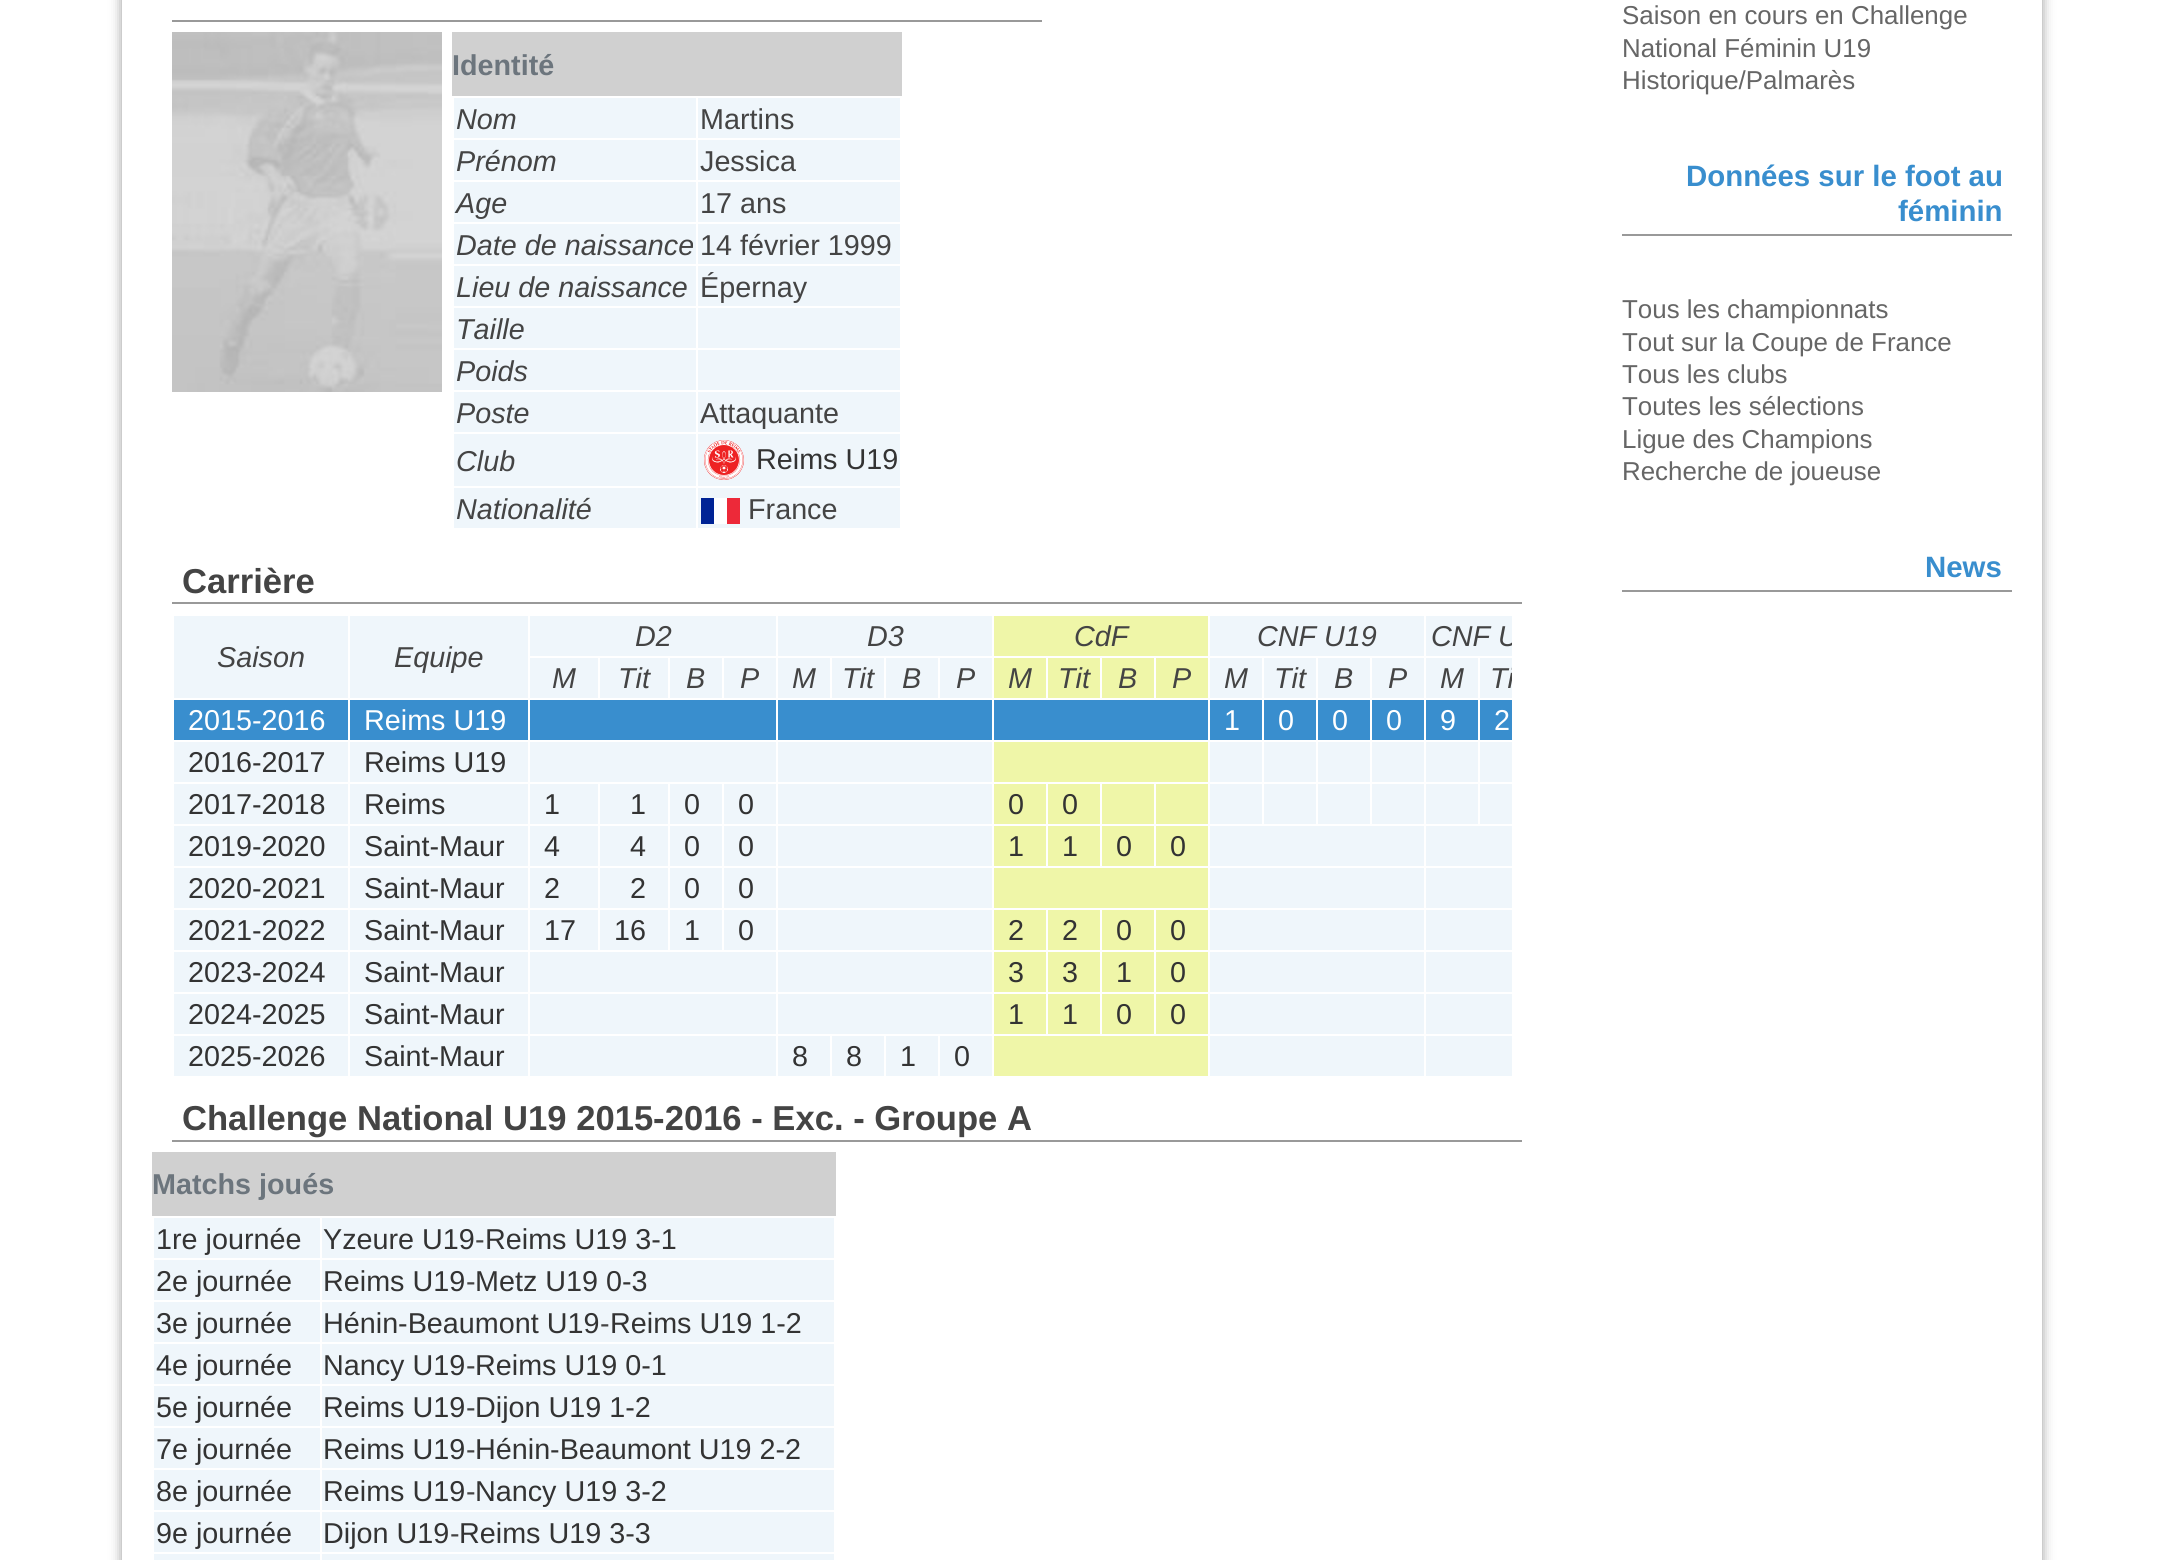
#include <cairo.h>
#include <math.h>
#include <stddef.h>


static void rgb(cairo_t *cr, int r, int g, int b)
{
	cairo_set_source_rgb(cr, r / 255.0, g / 255.0, b / 255.0);
}

static void face(cairo_t *cr, const char *family, double size, int italic, int bold)
{
	cairo_select_font_face(cr, family, italic ? CAIRO_FONT_SLANT_ITALIC : CAIRO_FONT_SLANT_NORMAL,
		bold ? CAIRO_FONT_WEIGHT_BOLD : CAIRO_FONT_WEIGHT_NORMAL);
	cairo_set_font_size(cr, size);
}

static void label(cairo_t *cr, double x, double y, const char *s)
{
	cairo_move_to(cr, x, y);
	cairo_show_text(cr, s);
}

static void rect(cairo_t *cr, double x, double y, double w, double h)
{
	cairo_rectangle(cr, x, y, w, h);
	cairo_fill(cr);
}

static void rrect(cairo_t *cr, double x, double y, double w, double h, double r)
{
	cairo_new_sub_path(cr);
	cairo_arc(cr, x + w - r, y + h - r, r, 0, M_PI / 2);
	cairo_arc(cr, x + r, y + h - r, r, M_PI / 2, M_PI);
	cairo_arc(cr, x + r, y + r, r, M_PI, 1.5 * M_PI);
	cairo_arc(cr, x + w - r, y + r, r, 1.5 * M_PI, 2 * M_PI);
	cairo_close_path(cr);
}

static void soft_shadow(cairo_t *cr, double x, double y, double w, double h, double r, double blur, double alpha)
{
	cairo_push_group_with_content(cr, CAIRO_CONTENT_ALPHA);
	cairo_set_operator(cr, CAIRO_OPERATOR_SOURCE);
	for (int i = 15; i >= -15 && fmin(w, h) + blur * i / 3 > 0; i -= 2) {
		double e = blur * i / 6;
		cairo_set_source_rgba(cr, 0, 0, 0, alpha * erfc((i - 1) / 8.5) / 2);
		rrect(cr, x - e, y - e, w + 2 * e, h + 2 * e, fmax(0, fmin(r + e + blur * .6, fmin(w, h) / 2 + e)));
		cairo_fill(cr);
	}
	cairo_pattern_t *soft = cairo_pop_group(cr);
	cairo_mask(cr, soft);
	cairo_pattern_destroy(soft);
}

static void image(cairo_t *cr, const char *path, double x, double y, double w, double h)
{
	cairo_surface_t *image = cairo_image_surface_create_from_png(path);
	cairo_save(cr);
	cairo_set_source_surface(cr, image, x, y);
	cairo_rectangle(cr, x, y, w, h);
	cairo_fill(cr);
	cairo_restore(cr);
	cairo_surface_destroy(image);
}

static void draw(cairo_t *cr) {
	rgb(cr, 255, 255, 255);
	cairo_paint(cr);
	cairo_save(cr);
	cairo_set_fill_rule(cr, CAIRO_FILL_RULE_EVEN_ODD);
	cairo_new_path(cr);
	cairo_move_to(cr, 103, 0);
	cairo_line_to(cr, 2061, 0);
	cairo_line_to(cr, 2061, 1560);
	cairo_line_to(cr, 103, 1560);
	cairo_close_path(cr);
	cairo_move_to(cr, 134, -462);
	cairo_line_to(cr, 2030, -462);
	cairo_curve_to(cr, 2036.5, -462, 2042, -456.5, 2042, -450);
	cairo_line_to(cr, 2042, 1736);
	cairo_curve_to(cr, 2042, 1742.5, 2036.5, 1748, 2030, 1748);
	cairo_line_to(cr, 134, 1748);
	cairo_curve_to(cr, 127.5, 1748, 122, 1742.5, 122, 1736);
	cairo_line_to(cr, 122, -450);
	cairo_curve_to(cr, 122, -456.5, 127.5, -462, 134, -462);
	cairo_close_path(cr);
	cairo_clip(cr);
	rgb(cr, 153, 153, 153);
	soft_shadow(cr, 122, -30, 1920, 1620, 12, 6, 1);
	cairo_restore(cr);
	rgb(cr, 153, 153, 153);
	rect(cr, 172, 20, 870, 2);
	image(cr, "image0.png", 172, 32, 270, 360);
	rgb(cr, 208, 208, 208);
	rect(cr, 452, 32, 450, 64);
	face(cr, "Liberation Sans", 28.75, 0, 1);
	rgb(cr, 108, 117, 125);
	label(cr, 452, 75, "Identité");
	rgb(cr, 239, 246, 251);
	rect(cr, 454, 98, 242, 40);
	face(cr, "Liberation Sans", 28.75, 1, 0);
	rgb(cr, 68, 68, 68);
	label(cr, 456, 129, "Nom");
	rgb(cr, 239, 246, 251);
	rect(cr, 698, 98, 202, 40);
	face(cr, "Liberation Sans", 28.75, 0, 0);
	rgb(cr, 68, 68, 68);
	label(cr, 700, 129, "Martins");
	rgb(cr, 239, 246, 251);
	rect(cr, 454, 140, 242, 40);
	face(cr, "Liberation Sans", 28.75, 1, 0);
	rgb(cr, 68, 68, 68);
	label(cr, 456, 171, "Prénom");
	rgb(cr, 239, 246, 251);
	rect(cr, 698, 140, 202, 40);
	face(cr, "Liberation Sans", 28.75, 0, 0);
	rgb(cr, 68, 68, 68);
	label(cr, 700, 171, "Jessica");
	rgb(cr, 239, 246, 251);
	rect(cr, 454, 182, 242, 40);
	face(cr, "Liberation Sans", 28.75, 1, 0);
	rgb(cr, 68, 68, 68);
	label(cr, 456, 213, "Age");
	rgb(cr, 239, 246, 251);
	rect(cr, 698, 182, 202, 40);
	face(cr, "Liberation Sans", 28.75, 0, 0);
	rgb(cr, 68, 68, 68);
	label(cr, 700, 213, "17 ans");
	rgb(cr, 239, 246, 251);
	rect(cr, 454, 224, 242, 40);
	face(cr, "Liberation Sans", 28.75, 1, 0);
	rgb(cr, 68, 68, 68);
	label(cr, 456, 255, "Date de naissance");
	rgb(cr, 239, 246, 251);
	rect(cr, 698, 224, 202, 40);
	face(cr, "Liberation Sans", 28.75, 0, 0);
	rgb(cr, 68, 68, 68);
	label(cr, 700, 255, "14 février 1999");
	rgb(cr, 239, 246, 251);
	rect(cr, 454, 266, 242, 40);
	face(cr, "Liberation Sans", 28.75, 1, 0);
	rgb(cr, 68, 68, 68);
	label(cr, 456, 297, "Lieu de naissance");
	rgb(cr, 239, 246, 251);
	rect(cr, 698, 266, 202, 40);
	face(cr, "Liberation Sans", 28.75, 0, 0);
	rgb(cr, 68, 68, 68);
	label(cr, 700, 297, "Épernay");
	rgb(cr, 239, 246, 251);
	rect(cr, 454, 308, 242, 40);
	face(cr, "Liberation Sans", 28.75, 1, 0);
	rgb(cr, 68, 68, 68);
	label(cr, 456, 339, "Taille");
	rgb(cr, 239, 246, 251);
	rect(cr, 698, 308, 202, 40);
	rect(cr, 454, 350, 242, 40);
	rgb(cr, 68, 68, 68);
	label(cr, 456, 381, "Poids");
	rgb(cr, 239, 246, 251);
	rect(cr, 698, 350, 202, 40);
	rect(cr, 454, 392, 242, 40);
	rgb(cr, 68, 68, 68);
	label(cr, 456, 423, "Poste");
	rgb(cr, 239, 246, 251);
	rect(cr, 698, 392, 202, 40);
	face(cr, "Liberation Sans", 28.75, 0, 0);
	rgb(cr, 68, 68, 68);
	label(cr, 700, 423, "Attaquante");
	rgb(cr, 239, 246, 251);
	rect(cr, 454, 434, 242, 52);
	face(cr, "Liberation Sans", 28.75, 1, 0);
	rgb(cr, 68, 68, 68);
	label(cr, 456, 471, "Club");
	rgb(cr, 239, 246, 251);
	rect(cr, 698, 434, 202, 52);
	image(cr, "image1.png", 704, 440, 40, 40);
	face(cr, "Liberation Sans", 28.75, 0, 0);
	rgb(cr, 51, 51, 51);
	label(cr, 756, 469, "Reims U19");
	rgb(cr, 239, 246, 251);
	rect(cr, 454, 488, 242, 40);
	face(cr, "Liberation Sans", 28.75, 1, 0);
	rgb(cr, 68, 68, 68);
	label(cr, 456, 519, "Nationalité");
	rgb(cr, 239, 246, 251);
	rect(cr, 698, 488, 202, 40);
	rgb(cr, 0, 35, 149);
	rect(cr, 701, 498, 13, 26);
	rgb(cr, 255, 255, 255);
	rect(cr, 714, 498, 13, 26);
	rgb(cr, 237, 41, 57);
	rect(cr, 727, 498, 13, 26);
	face(cr, "Liberation Sans", 28.75, 0, 0);
	rgb(cr, 68, 68, 68);
	label(cr, 748, 519, "France");
	rgb(cr, 153, 153, 153);
	rect(cr, 172, 602, 1350, 2);
	face(cr, "Liberation Sans", 34.6, 0, 1);
	rgb(cr, 68, 68, 68);
	label(cr, 182, 593, "Carrière");
	rgb(cr, 239, 246, 251);
	rect(cr, 530, 616, 246, 40);
	face(cr, "Liberation Sans", 28.75, 1, 0);
	rgb(cr, 68, 68, 68);
	label(cr, 635, 646, "D2");
	rgb(cr, 239, 246, 251);
	rect(cr, 778, 616, 214, 40);
	rgb(cr, 68, 68, 68);
	label(cr, 867, 646, "D3");
	rgb(cr, 239, 246, 168);
	rect(cr, 994, 616, 214, 40);
	rgb(cr, 68, 68, 68);
	label(cr, 1074, 646, "CdF");
	rgb(cr, 239, 246, 251);
	rect(cr, 1210, 616, 214, 40);
	rgb(cr, 68, 68, 68);
	label(cr, 1257, 646, "CNF U19");
	rgb(cr, 239, 246, 251);
	rect(cr, 1426, 616, 86, 40);
	cairo_save(cr);
	cairo_rectangle(cr, 172, 614, 1340, 464);
	cairo_clip(cr);
	rgb(cr, 68, 68, 68);
	label(cr, 1431, 646, "CNF U");
	cairo_restore(cr);
	rect(cr, 174, 616, 174, 82);
	rgb(cr, 68, 68, 68);
	label(cr, 217, 667, "Saison");
	rgb(cr, 239, 246, 251);
	rect(cr, 350, 616, 178, 82);
	rgb(cr, 68, 68, 68);
	label(cr, 394, 667, "Equipe");
	rgb(cr, 239, 246, 251);
	rect(cr, 530, 658, 68, 40);
	rgb(cr, 68, 68, 68);
	label(cr, 552, 688, "M");
	rgb(cr, 239, 246, 251);
	rect(cr, 600, 658, 68, 40);
	rgb(cr, 68, 68, 68);
	label(cr, 618, 688, "Tit");
	rgb(cr, 239, 246, 251);
	rect(cr, 670, 658, 52, 40);
	rgb(cr, 68, 68, 68);
	label(cr, 686, 688, "B");
	rgb(cr, 239, 246, 251);
	rect(cr, 724, 658, 52, 40);
	rgb(cr, 68, 68, 68);
	label(cr, 740, 688, "P");
	rgb(cr, 239, 246, 251);
	rect(cr, 778, 658, 52, 40);
	rgb(cr, 68, 68, 68);
	label(cr, 792, 688, "M");
	rgb(cr, 239, 246, 251);
	rect(cr, 832, 658, 52, 40);
	rgb(cr, 68, 68, 68);
	label(cr, 842, 688, "Tit");
	rgb(cr, 239, 246, 251);
	rect(cr, 886, 658, 52, 40);
	rgb(cr, 68, 68, 68);
	label(cr, 902, 688, "B");
	rgb(cr, 239, 246, 251);
	rect(cr, 940, 658, 52, 40);
	rgb(cr, 68, 68, 68);
	label(cr, 956, 688, "P");
	rgb(cr, 239, 246, 168);
	rect(cr, 994, 658, 52, 40);
	rgb(cr, 68, 68, 68);
	label(cr, 1008, 688, "M");
	rgb(cr, 239, 246, 168);
	rect(cr, 1048, 658, 52, 40);
	rgb(cr, 68, 68, 68);
	label(cr, 1058, 688, "Tit");
	rgb(cr, 239, 246, 168);
	rect(cr, 1102, 658, 52, 40);
	rgb(cr, 68, 68, 68);
	label(cr, 1118, 688, "B");
	rgb(cr, 239, 246, 168);
	rect(cr, 1156, 658, 52, 40);
	rgb(cr, 68, 68, 68);
	label(cr, 1172, 688, "P");
	rgb(cr, 239, 246, 251);
	rect(cr, 1210, 658, 52, 40);
	rgb(cr, 68, 68, 68);
	label(cr, 1224, 688, "M");
	rgb(cr, 239, 246, 251);
	rect(cr, 1264, 658, 52, 40);
	rgb(cr, 68, 68, 68);
	label(cr, 1274, 688, "Tit");
	rgb(cr, 239, 246, 251);
	rect(cr, 1318, 658, 52, 40);
	rgb(cr, 68, 68, 68);
	label(cr, 1334, 688, "B");
	rgb(cr, 239, 246, 251);
	rect(cr, 1372, 658, 52, 40);
	rgb(cr, 68, 68, 68);
	label(cr, 1388, 688, "P");
	rgb(cr, 239, 246, 251);
	rect(cr, 1426, 658, 52, 40);
	rgb(cr, 68, 68, 68);
	label(cr, 1440, 688, "M");
	rgb(cr, 239, 246, 251);
	rect(cr, 1480, 658, 32, 40);
	cairo_save(cr);
	cairo_rectangle(cr, 172, 614, 1340, 464);
	cairo_clip(cr);
	rgb(cr, 68, 68, 68);
	label(cr, 1490, 688, "Ti");
	cairo_restore(cr);
	rgb(cr, 57, 142, 206);
	rect(cr, 174, 700, 174, 40);
	face(cr, "Liberation Sans", 28.75, 0, 0);
	rgb(cr, 255, 255, 255);
	label(cr, 188, 730, "2015-2016");
	rgb(cr, 57, 142, 206);
	rect(cr, 350, 700, 178, 40);
	rgb(cr, 255, 255, 255);
	label(cr, 364, 730, "Reims U19");
	rgb(cr, 57, 142, 206);
	rect(cr, 530, 700, 246, 40);
	rect(cr, 778, 700, 214, 40);
	rect(cr, 994, 700, 214, 40);
	rect(cr, 1210, 700, 52, 40);
	rgb(cr, 255, 255, 255);
	label(cr, 1224, 730, "1");
	rgb(cr, 57, 142, 206);
	rect(cr, 1264, 700, 52, 40);
	rgb(cr, 255, 255, 255);
	label(cr, 1278, 730, "0");
	rgb(cr, 57, 142, 206);
	rect(cr, 1318, 700, 52, 40);
	rgb(cr, 255, 255, 255);
	label(cr, 1332, 730, "0");
	rgb(cr, 57, 142, 206);
	rect(cr, 1372, 700, 52, 40);
	rgb(cr, 255, 255, 255);
	label(cr, 1386, 730, "0");
	rgb(cr, 57, 142, 206);
	rect(cr, 1426, 700, 52, 40);
	rgb(cr, 255, 255, 255);
	label(cr, 1440, 730, "9");
	rgb(cr, 57, 142, 206);
	rect(cr, 1480, 700, 32, 40);
	rgb(cr, 255, 255, 255);
	label(cr, 1494, 730, "2");
	rgb(cr, 239, 246, 251);
	rect(cr, 174, 742, 174, 40);
	rgb(cr, 51, 51, 51);
	label(cr, 188, 772, "2016-2017");
	rgb(cr, 239, 246, 251);
	rect(cr, 350, 742, 178, 40);
	rgb(cr, 51, 51, 51);
	label(cr, 364, 772, "Reims U19");
	rgb(cr, 239, 246, 251);
	rect(cr, 530, 742, 246, 40);
	rect(cr, 778, 742, 214, 40);
	rgb(cr, 239, 246, 168);
	rect(cr, 994, 742, 214, 40);
	rgb(cr, 239, 246, 251);
	rect(cr, 1210, 742, 52, 40);
	rect(cr, 1264, 742, 52, 40);
	rect(cr, 1318, 742, 52, 40);
	rect(cr, 1372, 742, 52, 40);
	rect(cr, 1426, 742, 52, 40);
	rect(cr, 1480, 742, 32, 40);
	rect(cr, 174, 784, 174, 40);
	rgb(cr, 51, 51, 51);
	label(cr, 188, 814, "2017-2018");
	rgb(cr, 239, 246, 251);
	rect(cr, 350, 784, 178, 40);
	rgb(cr, 51, 51, 51);
	label(cr, 364, 814, "Reims");
	rgb(cr, 239, 246, 251);
	rect(cr, 530, 784, 68, 40);
	rgb(cr, 51, 51, 51);
	label(cr, 544, 814, "1");
	rgb(cr, 239, 246, 251);
	rect(cr, 600, 784, 68, 40);
	rgb(cr, 51, 51, 51);
	label(cr, 630, 814, "1");
	rgb(cr, 239, 246, 251);
	rect(cr, 670, 784, 52, 40);
	rgb(cr, 51, 51, 51);
	label(cr, 684, 814, "0");
	rgb(cr, 239, 246, 251);
	rect(cr, 724, 784, 52, 40);
	rgb(cr, 51, 51, 51);
	label(cr, 738, 814, "0");
	rgb(cr, 239, 246, 251);
	rect(cr, 778, 784, 214, 40);
	rgb(cr, 239, 246, 168);
	rect(cr, 994, 784, 52, 40);
	rgb(cr, 51, 51, 51);
	label(cr, 1008, 814, "0");
	rgb(cr, 239, 246, 168);
	rect(cr, 1048, 784, 52, 40);
	rgb(cr, 51, 51, 51);
	label(cr, 1062, 814, "0");
	rgb(cr, 239, 246, 168);
	rect(cr, 1102, 784, 52, 40);
	rect(cr, 1156, 784, 52, 40);
	rgb(cr, 239, 246, 251);
	rect(cr, 1210, 784, 52, 40);
	rect(cr, 1264, 784, 52, 40);
	rect(cr, 1318, 784, 52, 40);
	rect(cr, 1372, 784, 52, 40);
	rect(cr, 1426, 784, 52, 40);
	rect(cr, 1480, 784, 32, 40);
	rect(cr, 174, 826, 174, 40);
	rgb(cr, 51, 51, 51);
	label(cr, 188, 856, "2019-2020");
	rgb(cr, 239, 246, 251);
	rect(cr, 350, 826, 178, 40);
	rgb(cr, 51, 51, 51);
	label(cr, 364, 856, "Saint-Maur");
	rgb(cr, 239, 246, 251);
	rect(cr, 530, 826, 68, 40);
	rgb(cr, 51, 51, 51);
	label(cr, 544, 856, "4");
	rgb(cr, 239, 246, 251);
	rect(cr, 600, 826, 68, 40);
	rgb(cr, 51, 51, 51);
	label(cr, 630, 856, "4");
	rgb(cr, 239, 246, 251);
	rect(cr, 670, 826, 52, 40);
	rgb(cr, 51, 51, 51);
	label(cr, 684, 856, "0");
	rgb(cr, 239, 246, 251);
	rect(cr, 724, 826, 52, 40);
	rgb(cr, 51, 51, 51);
	label(cr, 738, 856, "0");
	rgb(cr, 239, 246, 251);
	rect(cr, 778, 826, 214, 40);
	rgb(cr, 239, 246, 168);
	rect(cr, 994, 826, 52, 40);
	rgb(cr, 51, 51, 51);
	label(cr, 1008, 856, "1");
	rgb(cr, 239, 246, 168);
	rect(cr, 1048, 826, 52, 40);
	rgb(cr, 51, 51, 51);
	label(cr, 1062, 856, "1");
	rgb(cr, 239, 246, 168);
	rect(cr, 1102, 826, 52, 40);
	rgb(cr, 51, 51, 51);
	label(cr, 1116, 856, "0");
	rgb(cr, 239, 246, 168);
	rect(cr, 1156, 826, 52, 40);
	rgb(cr, 51, 51, 51);
	label(cr, 1170, 856, "0");
	rgb(cr, 239, 246, 251);
	rect(cr, 1210, 826, 214, 40);
	rect(cr, 1426, 826, 86, 40);
	rect(cr, 174, 868, 174, 40);
	rgb(cr, 51, 51, 51);
	label(cr, 188, 898, "2020-2021");
	rgb(cr, 239, 246, 251);
	rect(cr, 350, 868, 178, 40);
	rgb(cr, 51, 51, 51);
	label(cr, 364, 898, "Saint-Maur");
	rgb(cr, 239, 246, 251);
	rect(cr, 530, 868, 68, 40);
	rgb(cr, 51, 51, 51);
	label(cr, 544, 898, "2");
	rgb(cr, 239, 246, 251);
	rect(cr, 600, 868, 68, 40);
	rgb(cr, 51, 51, 51);
	label(cr, 630, 898, "2");
	rgb(cr, 239, 246, 251);
	rect(cr, 670, 868, 52, 40);
	rgb(cr, 51, 51, 51);
	label(cr, 684, 898, "0");
	rgb(cr, 239, 246, 251);
	rect(cr, 724, 868, 52, 40);
	rgb(cr, 51, 51, 51);
	label(cr, 738, 898, "0");
	rgb(cr, 239, 246, 251);
	rect(cr, 778, 868, 214, 40);
	rgb(cr, 239, 246, 168);
	rect(cr, 994, 868, 214, 40);
	rgb(cr, 239, 246, 251);
	rect(cr, 1210, 868, 214, 40);
	rect(cr, 1426, 868, 86, 40);
	rect(cr, 174, 910, 174, 40);
	rgb(cr, 51, 51, 51);
	label(cr, 188, 940, "2021-2022");
	rgb(cr, 239, 246, 251);
	rect(cr, 350, 910, 178, 40);
	rgb(cr, 51, 51, 51);
	label(cr, 364, 940, "Saint-Maur");
	rgb(cr, 239, 246, 251);
	rect(cr, 530, 910, 68, 40);
	rgb(cr, 51, 51, 51);
	label(cr, 544, 940, "17");
	rgb(cr, 239, 246, 251);
	rect(cr, 600, 910, 68, 40);
	rgb(cr, 51, 51, 51);
	label(cr, 614, 940, "16");
	rgb(cr, 239, 246, 251);
	rect(cr, 670, 910, 52, 40);
	rgb(cr, 51, 51, 51);
	label(cr, 684, 940, "1");
	rgb(cr, 239, 246, 251);
	rect(cr, 724, 910, 52, 40);
	rgb(cr, 51, 51, 51);
	label(cr, 738, 940, "0");
	rgb(cr, 239, 246, 251);
	rect(cr, 778, 910, 214, 40);
	rgb(cr, 239, 246, 168);
	rect(cr, 994, 910, 52, 40);
	rgb(cr, 51, 51, 51);
	label(cr, 1008, 940, "2");
	rgb(cr, 239, 246, 168);
	rect(cr, 1048, 910, 52, 40);
	rgb(cr, 51, 51, 51);
	label(cr, 1062, 940, "2");
	rgb(cr, 239, 246, 168);
	rect(cr, 1102, 910, 52, 40);
	rgb(cr, 51, 51, 51);
	label(cr, 1116, 940, "0");
	rgb(cr, 239, 246, 168);
	rect(cr, 1156, 910, 52, 40);
	rgb(cr, 51, 51, 51);
	label(cr, 1170, 940, "0");
	rgb(cr, 239, 246, 251);
	rect(cr, 1210, 910, 214, 40);
	rect(cr, 1426, 910, 86, 40);
	rect(cr, 174, 952, 174, 40);
	rgb(cr, 51, 51, 51);
	label(cr, 188, 982, "2023-2024");
	rgb(cr, 239, 246, 251);
	rect(cr, 350, 952, 178, 40);
	rgb(cr, 51, 51, 51);
	label(cr, 364, 982, "Saint-Maur");
	rgb(cr, 239, 246, 251);
	rect(cr, 530, 952, 246, 40);
	rect(cr, 778, 952, 214, 40);
	rgb(cr, 239, 246, 168);
	rect(cr, 994, 952, 52, 40);
	rgb(cr, 51, 51, 51);
	label(cr, 1008, 982, "3");
	rgb(cr, 239, 246, 168);
	rect(cr, 1048, 952, 52, 40);
	rgb(cr, 51, 51, 51);
	label(cr, 1062, 982, "3");
	rgb(cr, 239, 246, 168);
	rect(cr, 1102, 952, 52, 40);
	rgb(cr, 51, 51, 51);
	label(cr, 1116, 982, "1");
	rgb(cr, 239, 246, 168);
	rect(cr, 1156, 952, 52, 40);
	rgb(cr, 51, 51, 51);
	label(cr, 1170, 982, "0");
	rgb(cr, 239, 246, 251);
	rect(cr, 1210, 952, 214, 40);
	rect(cr, 1426, 952, 86, 40);
	rect(cr, 174, 994, 174, 40);
	rgb(cr, 51, 51, 51);
	label(cr, 188, 1024, "2024-2025");
	rgb(cr, 239, 246, 251);
	rect(cr, 350, 994, 178, 40);
	rgb(cr, 51, 51, 51);
	label(cr, 364, 1024, "Saint-Maur");
	rgb(cr, 239, 246, 251);
	rect(cr, 530, 994, 246, 40);
	rect(cr, 778, 994, 214, 40);
	rgb(cr, 239, 246, 168);
	rect(cr, 994, 994, 52, 40);
	rgb(cr, 51, 51, 51);
	label(cr, 1008, 1024, "1");
	rgb(cr, 239, 246, 168);
	rect(cr, 1048, 994, 52, 40);
	rgb(cr, 51, 51, 51);
	label(cr, 1062, 1024, "1");
	rgb(cr, 239, 246, 168);
	rect(cr, 1102, 994, 52, 40);
	rgb(cr, 51, 51, 51);
	label(cr, 1116, 1024, "0");
	rgb(cr, 239, 246, 168);
	rect(cr, 1156, 994, 52, 40);
	rgb(cr, 51, 51, 51);
	label(cr, 1170, 1024, "0");
	rgb(cr, 239, 246, 251);
	rect(cr, 1210, 994, 214, 40);
	rect(cr, 1426, 994, 86, 40);
	rect(cr, 174, 1036, 174, 40);
	rgb(cr, 51, 51, 51);
	label(cr, 188, 1066, "2025-2026");
	rgb(cr, 239, 246, 251);
	rect(cr, 350, 1036, 178, 40);
	rgb(cr, 51, 51, 51);
	label(cr, 364, 1066, "Saint-Maur");
	rgb(cr, 239, 246, 251);
	rect(cr, 530, 1036, 246, 40);
	rect(cr, 778, 1036, 52, 40);
	rgb(cr, 51, 51, 51);
	label(cr, 792, 1066, "8");
	rgb(cr, 239, 246, 251);
	rect(cr, 832, 1036, 52, 40);
	rgb(cr, 51, 51, 51);
	label(cr, 846, 1066, "8");
	rgb(cr, 239, 246, 251);
	rect(cr, 886, 1036, 52, 40);
	rgb(cr, 51, 51, 51);
	label(cr, 900, 1066, "1");
	rgb(cr, 239, 246, 251);
	rect(cr, 940, 1036, 52, 40);
	rgb(cr, 51, 51, 51);
	label(cr, 954, 1066, "0");
	rgb(cr, 239, 246, 168);
	rect(cr, 994, 1036, 214, 40);
	rgb(cr, 239, 246, 251);
	rect(cr, 1210, 1036, 214, 40);
	rect(cr, 1426, 1036, 86, 40);
	rgb(cr, 153, 153, 153);
	rect(cr, 172, 1140, 1350, 2);
	face(cr, "Liberation Sans", 34.6, 0, 1);
	rgb(cr, 68, 68, 68);
	label(cr, 182, 1130, "Challenge National U19 2015-2016 - Exc. - Groupe A");
	rgb(cr, 208, 208, 208);
	rect(cr, 152, 1152, 684, 64);
	face(cr, "Liberation Sans", 28.75, 0, 1);
	rgb(cr, 108, 117, 125);
	label(cr, 152, 1194, "Matchs joués");
	rgb(cr, 239, 246, 251);
	rect(cr, 154, 1218, 166, 40);
	face(cr, "Liberation Sans", 28.75, 0, 0);
	rgb(cr, 51, 51, 51);
	label(cr, 156, 1249, "1re journée");
	rgb(cr, 239, 246, 251);
	rect(cr, 322, 1218, 512, 40);
	rgb(cr, 51, 51, 51);
	label(cr, 323, 1249, "Yzeure U19");
	rgb(cr, 68, 68, 68);
	label(cr, 475, 1249, "-");
	rgb(cr, 51, 51, 51);
	label(cr, 485, 1249, "Reims U19 3-1");
	rgb(cr, 239, 246, 251);
	rect(cr, 154, 1260, 166, 40);
	rgb(cr, 51, 51, 51);
	label(cr, 156, 1291, "2e journée");
	rgb(cr, 239, 246, 251);
	rect(cr, 322, 1260, 512, 40);
	rgb(cr, 51, 51, 51);
	label(cr, 323, 1291, "Reims U19");
	rgb(cr, 68, 68, 68);
	label(cr, 466, 1291, "-");
	rgb(cr, 51, 51, 51);
	label(cr, 475, 1291, "Metz U19 0-3");
	rgb(cr, 239, 246, 251);
	rect(cr, 154, 1302, 166, 40);
	rgb(cr, 51, 51, 51);
	label(cr, 156, 1333, "3e journée");
	rgb(cr, 239, 246, 251);
	rect(cr, 322, 1302, 512, 40);
	rgb(cr, 51, 51, 51);
	label(cr, 323, 1333, "Hénin-Beaumont U19");
	rgb(cr, 68, 68, 68);
	label(cr, 600, 1333, "-");
	rgb(cr, 51, 51, 51);
	label(cr, 610, 1333, "Reims U19 1-2");
	rgb(cr, 239, 246, 251);
	rect(cr, 154, 1344, 166, 40);
	rgb(cr, 51, 51, 51);
	label(cr, 156, 1375, "4e journée");
	rgb(cr, 239, 246, 251);
	rect(cr, 322, 1344, 512, 40);
	rgb(cr, 51, 51, 51);
	label(cr, 323, 1375, "Nancy U19");
	rgb(cr, 68, 68, 68);
	label(cr, 466, 1375, "-");
	rgb(cr, 51, 51, 51);
	label(cr, 475, 1375, "Reims U19 0-1");
	rgb(cr, 239, 246, 251);
	rect(cr, 154, 1386, 166, 40);
	rgb(cr, 51, 51, 51);
	label(cr, 156, 1417, "5e journée");
	rgb(cr, 239, 246, 251);
	rect(cr, 322, 1386, 512, 40);
	rgb(cr, 51, 51, 51);
	label(cr, 323, 1417, "Reims U19");
	rgb(cr, 68, 68, 68);
	label(cr, 466, 1417, "-");
	rgb(cr, 51, 51, 51);
	label(cr, 475, 1417, "Dijon U19 1-2");
	rgb(cr, 239, 246, 251);
	rect(cr, 154, 1428, 166, 40);
	rgb(cr, 51, 51, 51);
	label(cr, 156, 1459, "7e journée");
	rgb(cr, 239, 246, 251);
	rect(cr, 322, 1428, 512, 40);
	rgb(cr, 51, 51, 51);
	label(cr, 323, 1459, "Reims U19");
	rgb(cr, 68, 68, 68);
	label(cr, 466, 1459, "-");
	rgb(cr, 51, 51, 51);
	label(cr, 475, 1459, "Hénin-Beaumont U19 2-2");
	rgb(cr, 239, 246, 251);
	rect(cr, 154, 1470, 166, 40);
	rgb(cr, 51, 51, 51);
	label(cr, 156, 1501, "8e journée");
	rgb(cr, 239, 246, 251);
	rect(cr, 322, 1470, 512, 40);
	rgb(cr, 51, 51, 51);
	label(cr, 323, 1501, "Reims U19");
	rgb(cr, 68, 68, 68);
	label(cr, 466, 1501, "-");
	rgb(cr, 51, 51, 51);
	label(cr, 475, 1501, "Nancy U19 3-2");
	rgb(cr, 239, 246, 251);
	rect(cr, 154, 1512, 166, 40);
	rgb(cr, 51, 51, 51);
	label(cr, 156, 1543, "9e journée");
	rgb(cr, 239, 246, 251);
	rect(cr, 322, 1512, 512, 40);
	rgb(cr, 51, 51, 51);
	label(cr, 323, 1543, "Dijon U19");
	rgb(cr, 68, 68, 68);
	label(cr, 450, 1543, "-");
	rgb(cr, 51, 51, 51);
	label(cr, 459, 1543, "Reims U19 3-3");
	rgb(cr, 239, 246, 251);
	rect(cr, 154, 1554, 166, 6);
	rect(cr, 322, 1554, 512, 6);
	face(cr, "Liberation Sans", 25.9, 0, 0);
	rgb(cr, 102, 102, 102);
	label(cr, 1622, 24, "Saison en cours en Challenge");
	label(cr, 1622, 57, "National Féminin U19");
	label(cr, 1622, 89, "Historique/Palmarès");
	rgb(cr, 153, 153, 153);
	rect(cr, 1622, 234, 390, 2);
	face(cr, "Liberation Sans", 29.4, 0, 1);
	rgb(cr, 57, 142, 206);
	label(cr, 1686, 186, "Données sur le foot au");
	label(cr, 1898, 221, "féminin");
	face(cr, "Liberation Sans", 25.9, 0, 0);
	rgb(cr, 102, 102, 102);
	label(cr, 1622, 318, "Tous les championnats");
	label(cr, 1622, 351, "Tout sur la Coupe de France");
	label(cr, 1622, 383, "Tous les clubs");
	label(cr, 1622, 415, "Toutes les sélections");
	label(cr, 1622, 448, "Ligue des Champions");
	label(cr, 1622, 480, "Recherche de joueuse");
	rgb(cr, 153, 153, 153);
	rect(cr, 1622, 590, 390, 2);
	face(cr, "Liberation Sans", 29.4, 0, 1);
	rgb(cr, 57, 142, 206);
	label(cr, 1925, 577, "News");
}

int main(void) {
	cairo_surface_t *surface = cairo_image_surface_create(CAIRO_FORMAT_RGB24, 2164, 1560);
	cairo_t *cr = cairo_create(surface);
	cairo_font_options_t *options = cairo_font_options_create();
	cairo_font_options_set_hint_metrics(options, CAIRO_HINT_METRICS_OFF);
	cairo_font_options_set_hint_style(options, CAIRO_HINT_STYLE_NONE);
	cairo_set_font_options(cr, options);
	cairo_set_miter_limit(cr, 4);
	draw(cr);
	cairo_surface_write_to_png(surface, "render.png");
	cairo_font_options_destroy(options);
	cairo_destroy(cr);
	cairo_surface_destroy(surface);
	return 0;
}
